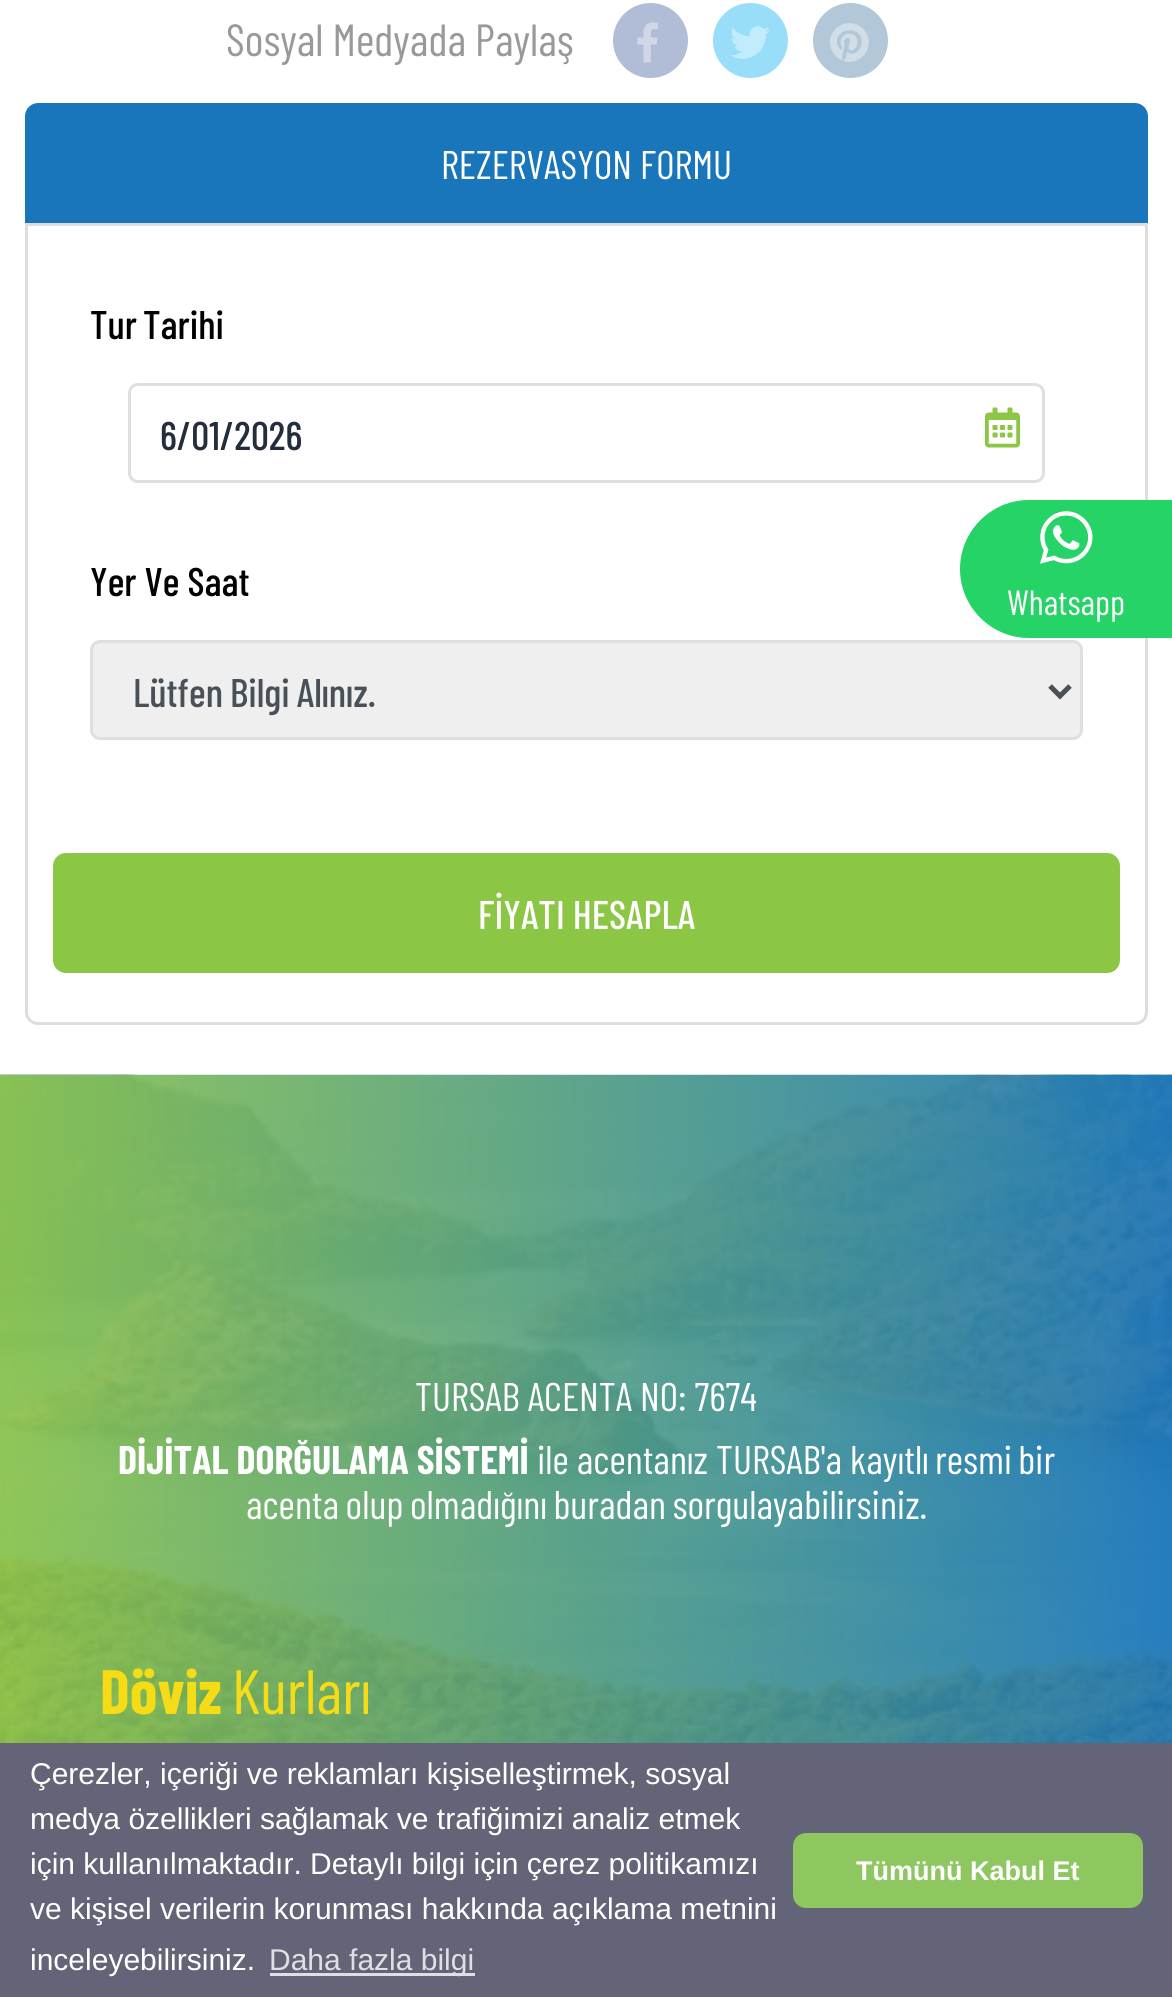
#include <cairo.h>
#include <math.h>
#include <stddef.h>


static void rgb(cairo_t *cr, int r, int g, int b)
{
	cairo_set_source_rgb(cr, r / 255.0, g / 255.0, b / 255.0);
}

static void face(cairo_t *cr, const char *family, double size, int italic, int bold)
{
	cairo_select_font_face(cr, family, italic ? CAIRO_FONT_SLANT_ITALIC : CAIRO_FONT_SLANT_NORMAL,
		bold ? CAIRO_FONT_WEIGHT_BOLD : CAIRO_FONT_WEIGHT_NORMAL);
	cairo_set_font_size(cr, size);
}

static void label(cairo_t *cr, double x, double y, const char *s)
{
	cairo_move_to(cr, x, y);
	cairo_show_text(cr, s);
}

static void tracked(cairo_t *cr, double x, double y, const char *s, double letter, double word)
{
	cairo_move_to(cr, x, y);
	while (*s) {
		char ch[5] = {0};
		int n = 0;
		do ch[n++] = *s++; while ((*s & 0xC0) == 0x80);
		cairo_show_text(cr, ch);
		cairo_rel_move_to(cr, letter + word * (*ch == ' '), 0);
	}
}

static void rect(cairo_t *cr, double x, double y, double w, double h)
{
	cairo_rectangle(cr, x, y, w, h);
	cairo_fill(cr);
}

static void rrect(cairo_t *cr, double x, double y, double w, double h, double r)
{
	cairo_new_sub_path(cr);
	cairo_arc(cr, x + w - r, y + h - r, r, 0, M_PI / 2);
	cairo_arc(cr, x + r, y + h - r, r, M_PI / 2, M_PI);
	cairo_arc(cr, x + r, y + r, r, M_PI, 1.5 * M_PI);
	cairo_arc(cr, x + w - r, y + r, r, 1.5 * M_PI, 2 * M_PI);
	cairo_close_path(cr);
}

static void image(cairo_t *cr, const char *path, double x, double y, double w, double h)
{
	cairo_surface_t *image = cairo_image_surface_create_from_png(path);
	cairo_save(cr);
	cairo_set_source_surface(cr, image, x, y);
	cairo_rectangle(cr, x, y, w, h);
	cairo_fill(cr);
	cairo_restore(cr);
	cairo_surface_destroy(image);
}

static void draw(cairo_t *cr) {
	rgb(cr, 255, 255, 255);
	cairo_paint(cr);
	face(cr, "Barlow Condensed", 45, 0, 0);
	rgb(cr, 153, 153, 153);
	label(cr, 226, 56, "Sosyal Medyada Paylaş");
	rgb(cr, 177, 189, 214);
	cairo_new_path(cr);
	cairo_arc(cr, 650.5, 40.5, 37.5, 0, 2 * M_PI);
	cairo_fill(cr);
	image(cr, "image0.png", 637, 22, 21, 41);
	rgb(cr, 153, 222, 248);
	cairo_arc(cr, 750.5, 40.5, 37.5, 0, 2 * M_PI);
	cairo_fill(cr);
	image(cr, "image1.png", 730, 26, 40, 33);
	rgb(cr, 178, 199, 215);
	cairo_arc(cr, 850.5, 40.5, 37.5, 0, 2 * M_PI);
	cairo_fill(cr);
	image(cr, "image2.png", 830, 23, 39, 39);
	rgb(cr, 25, 118, 187);
	cairo_new_path(cr);
	cairo_move_to(cr, 38, 103);
	cairo_line_to(cr, 1135, 103);
	cairo_curve_to(cr, 1142, 103, 1148, 109, 1148, 116);
	cairo_line_to(cr, 1148, 223);
	cairo_line_to(cr, 25, 223);
	cairo_line_to(cr, 25, 116);
	cairo_curve_to(cr, 25, 109, 31, 103, 38, 103);
	cairo_close_path(cr);
	cairo_fill(cr);
	face(cr, "Barlow Condensed", 40, 0, 0);
	rgb(cr, 255, 255, 255);
	label(cr, 441, 179, "REZERVASYON FORMU");
	cairo_new_path(cr);
	cairo_move_to(cr, 26.5, 224.5);
	cairo_line_to(cr, 1146.5, 224.5);
	cairo_line_to(cr, 1146.5, 1012);
	cairo_curve_to(cr, 1146.5, 1018.5, 1141.5, 1023.5, 1135, 1023.5);
	cairo_line_to(cr, 38, 1023.5);
	cairo_curve_to(cr, 31.5, 1023.5, 26.5, 1018.5, 26.5, 1012);
	cairo_close_path(cr);
	rgb(cr, 221, 221, 221);
	cairo_set_line_width(cr, 3);
	cairo_stroke(cr);
	face(cr, "Barlow Condensed Medium", 40, 0, 0);
	rgb(cr, 0, 0, 0);
	tracked(cr, 90, 339, "Tur Tarihi", 0, -2);
	rrect(cr, 129.5, 384.5, 914, 97, 8.5);
	rgb(cr, 223, 223, 223);
	cairo_stroke(cr);
	rgb(cr, 35, 45, 59);
	label(cr, 160, 450, "6/01/2026");
	image(cr, "image3.png", 985, 407, 35, 41);
	rgb(cr, 0, 0, 0);
	label(cr, 90, 596, "Yer Ve Saat");
	rgb(cr, 239, 239, 239);
	rrect(cr, 91.5, 641.5, 990, 97, 8.5);
	cairo_fill_preserve(cr);
	rgb(cr, 223, 223, 223);
	cairo_stroke(cr);
	cairo_new_path(cr);
	cairo_move_to(cr, 1050, 686);
	cairo_line_to(cr, 1060, 696);
	cairo_line_to(cr, 1070, 686);
	rgb(cr, 73, 80, 87);
	cairo_set_line_width(cr, 5);
	cairo_stroke(cr);
	tracked(cr, 133, 707, "Lütfen Bilgi Alınız.", 0, -1);
	rgb(cr, 140, 198, 69);
	rrect(cr, 53, 853, 1067, 120, 13);
	cairo_fill(cr);
	rgb(cr, 255, 255, 255);
	label(cr, 478, 929, "FİYATI HESAPLA");
	rgb(cr, 37, 211, 102);
	cairo_new_path(cr);
	cairo_move_to(cr, 1029, 500);
	cairo_line_to(cr, 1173, 500);
	cairo_line_to(cr, 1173, 638);
	cairo_line_to(cr, 1029, 638);
	cairo_curve_to(cr, 991, 638, 960, 607, 960, 569);
	cairo_curve_to(cr, 960, 531, 991, 500, 1029, 500);
	cairo_close_path(cr);
	cairo_fill(cr);
	image(cr, "image4.png", 1040, 511, 53, 53);
	face(cr, "Barlow Condensed", 35, 0, 0);
	rgb(cr, 255, 255, 255);
	label(cr, 1007, 615, "Whatsapp");
	image(cr, "image5.png", 0, 1074, 1172, 669);
	face(cr, "Barlow Condensed", 40, 0, 0);
	label(cr, 415, 1411, "TURSAB ACENTA NO: 7674");
	face(cr, "Barlow Condensed", 40, 0, 1);
	label(cr, 118, 1474, "DİJİTAL DORĞULAMA SİSTEMİ");
	face(cr, "Barlow Condensed", 40, 0, 0);
	label(cr, 537, 1474, "ile acentanız TURSAB'a kayıtlı");
	tracked(cr, 935, 1474, "resmi bir", 0, -2);
	tracked(cr, 246, 1519, "acenta olup olmadığını buradan sorgulayabilirsiniz.", 0, -1.5);
	face(cr, "Barlow Condensed", 62.5, 0, 1);
	rgb(cr, 246, 220, 22);
	label(cr, 100, 1714, "Döviz");
	face(cr, "Barlow Condensed", 62.5, 0, 0);
	label(cr, 232, 1714, "Kurları");
	rgb(cr, 100, 100, 120);
	rect(cr, 0, 1743, 1172, 254);
	face(cr, "Liberation Sans", 30, 0, 0);
	rgb(cr, 255, 255, 255);
	label(cr, 30, 1784, "Çerezler, içeriği ve reklamları kişiselleştirmek, sosyal");
	label(cr, 30, 1829, "medya özellikleri sağlamak ve trafiğimizi analiz etmek");
	label(cr, 30, 1874, "için kullanılmaktadır. Detaylı bilgi için çerez politikamızı");
	label(cr, 30, 1919, "ve kişisel verilerin korunması hakkında açıklama metnini");
	label(cr, 30, 1970, "inceleyebilirsiniz.");
	rgb(cr, 224, 224, 228);
	rect(cr, 270, 1973, 205, 3);
	label(cr, 269, 1970, "Daha fazla bilgi");
	rgb(cr, 142, 199, 96);
	rrect(cr, 793, 1833, 350, 75, 13);
	cairo_fill(cr);
	face(cr, "Liberation Sans", 27, 0, 1);
	rgb(cr, 255, 255, 255);
	label(cr, 856, 1880, "Tümünü Kabul Et");
}

int main(void) {
	cairo_surface_t *surface = cairo_image_surface_create(CAIRO_FORMAT_RGB24, 1172, 1997);
	cairo_t *cr = cairo_create(surface);
	cairo_font_options_t *options = cairo_font_options_create();
	cairo_font_options_set_hint_metrics(options, CAIRO_HINT_METRICS_OFF);
	cairo_font_options_set_hint_style(options, CAIRO_HINT_STYLE_NONE);
	cairo_set_font_options(cr, options);
	cairo_set_miter_limit(cr, 4);
	draw(cr);
	cairo_surface_write_to_png(surface, "render.png");
	cairo_font_options_destroy(options);
	cairo_destroy(cr);
	cairo_surface_destroy(surface);
	return 0;
}
